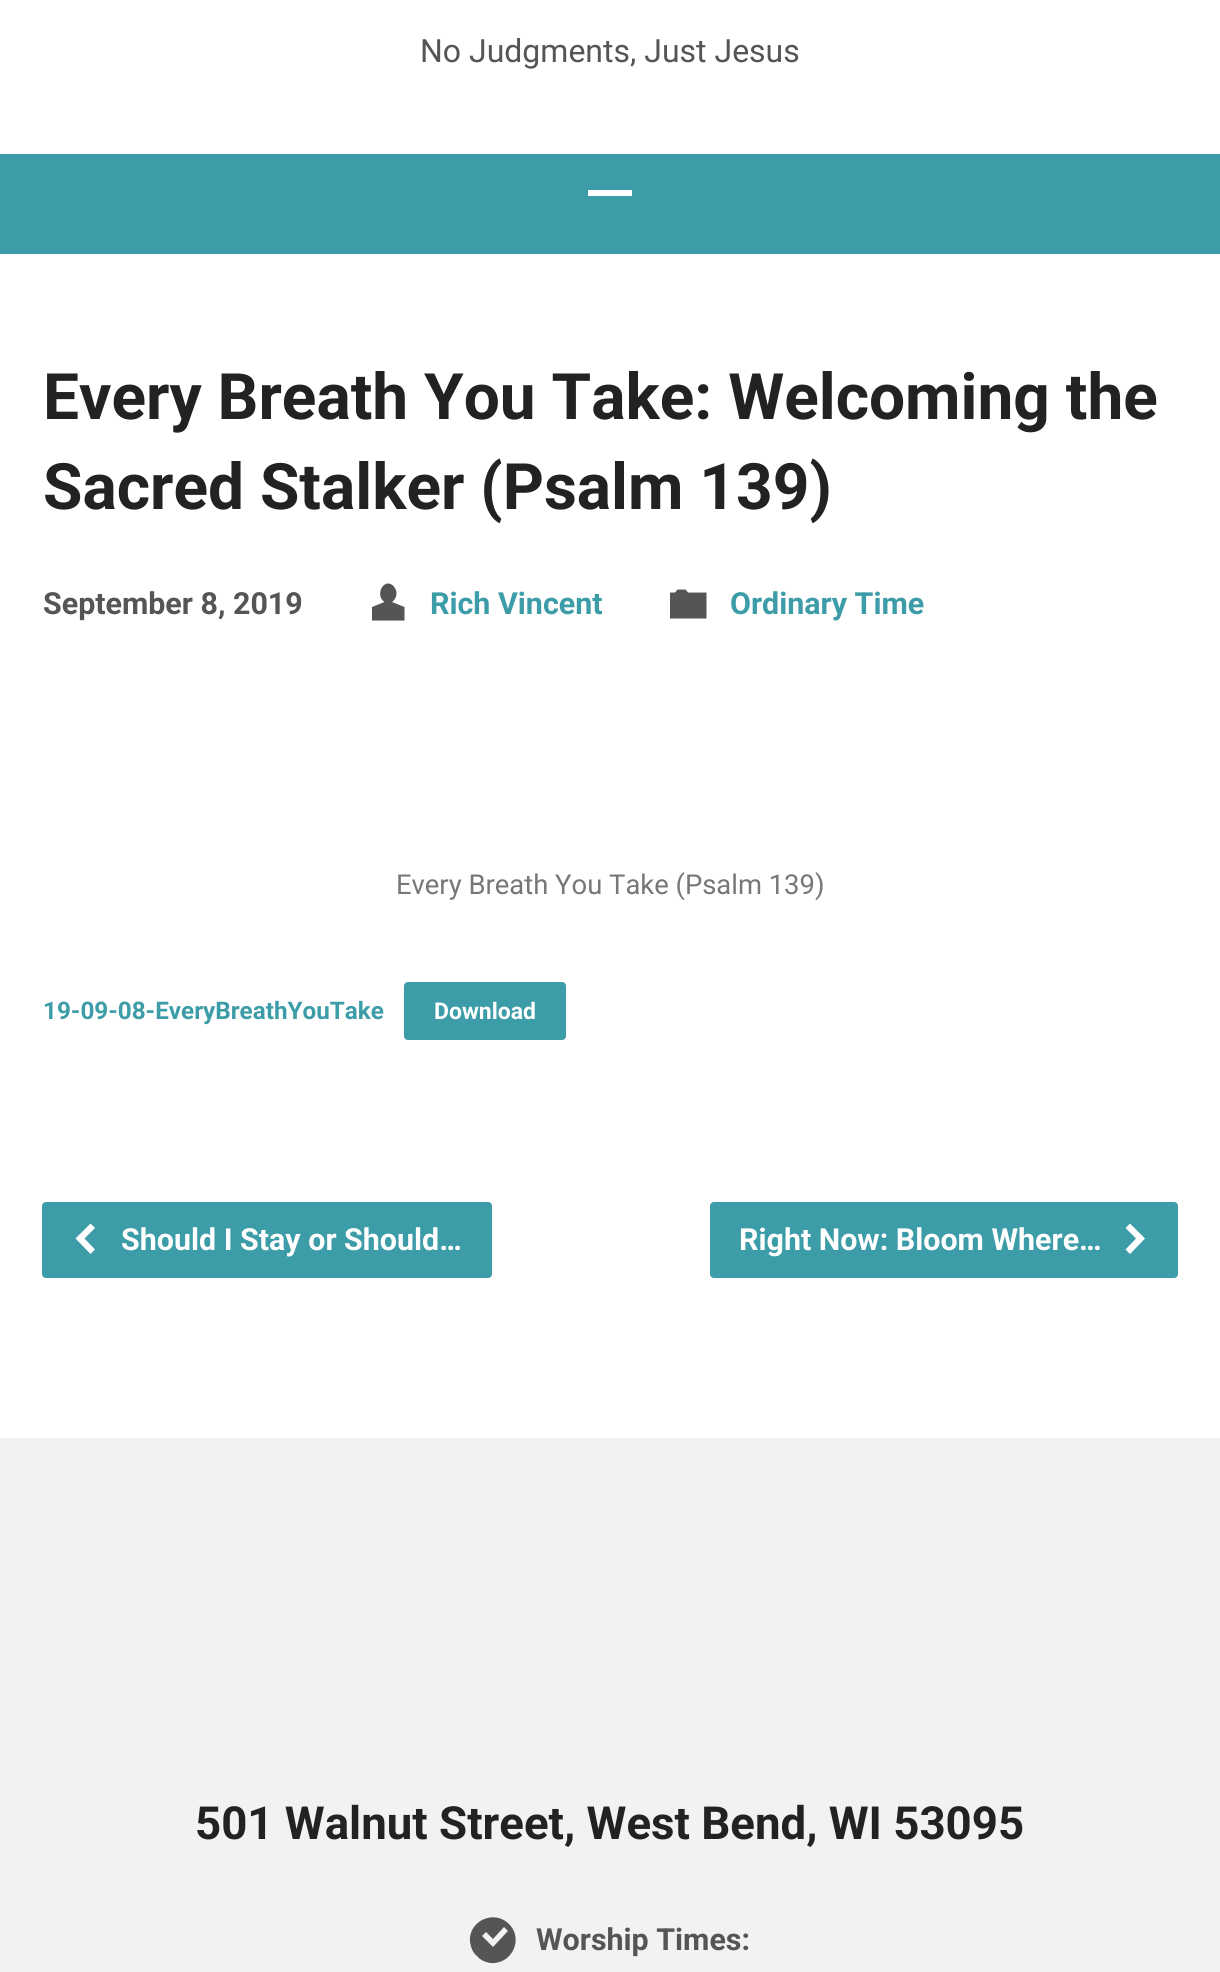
#include <cairo.h>
#include <math.h>
#include <stddef.h>


static void rgb(cairo_t *cr, int r, int g, int b)
{
	cairo_set_source_rgb(cr, r / 255.0, g / 255.0, b / 255.0);
}

static void face(cairo_t *cr, const char *family, double size, int italic, int bold)
{
	cairo_select_font_face(cr, family, italic ? CAIRO_FONT_SLANT_ITALIC : CAIRO_FONT_SLANT_NORMAL,
		bold ? CAIRO_FONT_WEIGHT_BOLD : CAIRO_FONT_WEIGHT_NORMAL);
	cairo_set_font_size(cr, size);
}

static void label(cairo_t *cr, double x, double y, const char *s)
{
	cairo_move_to(cr, x, y);
	cairo_show_text(cr, s);
}

static void rect(cairo_t *cr, double x, double y, double w, double h)
{
	cairo_rectangle(cr, x, y, w, h);
	cairo_fill(cr);
}

static void rrect(cairo_t *cr, double x, double y, double w, double h, double r)
{
	cairo_new_sub_path(cr);
	cairo_arc(cr, x + w - r, y + h - r, r, 0, M_PI / 2);
	cairo_arc(cr, x + r, y + h - r, r, M_PI / 2, M_PI);
	cairo_arc(cr, x + r, y + r, r, M_PI, 1.5 * M_PI);
	cairo_arc(cr, x + w - r, y + r, r, 1.5 * M_PI, 2 * M_PI);
	cairo_close_path(cr);
}

static void draw(cairo_t *cr) {
	rgb(cr, 255, 255, 255);
	cairo_paint(cr);
	face(cr, "Roboto", 32, 0, 0);
	rgb(cr, 85, 85, 85);
	label(cr, 420, 62, "No Judgments, Just Jesus");
	rgb(cr, 60, 156, 167);
	rect(cr, 0, 154, 1220, 100);
	rgb(cr, 255, 255, 255);
	rect(cr, 588, 190, 44, 6);
	face(cr, "Roboto", 64, 0, 1);
	rgb(cr, 34, 34, 34);
	label(cr, 43, 419, "Every Breath You Take: Welcoming the");
	label(cr, 43, 509, "Sacred Stalker (Psalm 139)");
	face(cr, "Roboto", 30.4, 0, 1);
	rgb(cr, 85, 85, 85);
	label(cr, 43, 614, "September 8, 2019");
	cairo_new_path(cr);
	cairo_move_to(cr, 404.5, 607);
	cairo_line_to(cr, 404.5, 620.5);
	cairo_line_to(cr, 372, 620.5);
	cairo_line_to(cr, 372, 607);
	cairo_line_to(cr, 384.5, 602);
	cairo_curve_to(cr, 374.5, 595.5, 383.5, 577.5, 393, 585.5);
	cairo_curve_to(cr, 395, 587.5, 396.5, 590.5, 396.5, 593);
	cairo_curve_to(cr, 396.5, 596.5, 395, 600, 392, 602);
	cairo_close_path(cr);
	cairo_fill(cr);
	rgb(cr, 60, 156, 167);
	label(cr, 430, 614, "Rich Vincent");
	rgb(cr, 85, 85, 85);
	cairo_new_path(cr);
	cairo_move_to(cr, 677.5, 589.5);
	cairo_line_to(cr, 675, 592.5);
	cairo_line_to(cr, 670, 592.5);
	cairo_line_to(cr, 670, 618.5);
	cairo_line_to(cr, 706.5, 618.5);
	cairo_line_to(cr, 706.5, 592.5);
	cairo_line_to(cr, 688, 592.5);
	cairo_line_to(cr, 685.5, 589.5);
	cairo_close_path(cr);
	cairo_fill(cr);
	rgb(cr, 60, 156, 167);
	label(cr, 730, 614, "Ordinary Time");
	face(cr, "Roboto", 27.4, 0, 0);
	rgb(cr, 119, 119, 119);
	label(cr, 396, 894, "Every Breath You Take (Psalm 139)");
	face(cr, "Roboto", 24.25, 0, 1);
	rgb(cr, 60, 156, 167);
	label(cr, 43, 1019, "19-09-08-EveryBreathYouTake");
	rrect(cr, 404, 982, 162, 58, 4);
	cairo_fill(cr);
	face(cr, "Roboto", 23, 0, 1);
	rgb(cr, 255, 255, 255);
	label(cr, 434, 1019, "Download");
	rgb(cr, 60, 156, 167);
	rrect(cr, 42, 1202, 450, 76, 4);
	cairo_fill(cr);
	rgb(cr, 255, 255, 255);
	cairo_new_path(cr);
	cairo_move_to(cr, 75.5, 1238.5);
	cairo_line_to(cr, 90.5, 1254);
	cairo_line_to(cr, 95, 1249.5);
	cairo_line_to(cr, 84.5, 1238.5);
	cairo_line_to(cr, 95, 1228);
	cairo_line_to(cr, 90.5, 1223.5);
	cairo_close_path(cr);
	cairo_fill(cr);
	face(cr, "Roboto", 30.4, 0, 1);
	label(cr, 121, 1250, "Should I Stay or Should…");
	rgb(cr, 60, 156, 167);
	rrect(cr, 710, 1202, 468, 76, 4);
	cairo_fill(cr);
	rgb(cr, 255, 255, 255);
	label(cr, 739, 1250, "Right Now: Bloom Where…");
	cairo_new_path(cr);
	cairo_move_to(cr, 1145, 1238.5);
	cairo_line_to(cr, 1130, 1223.5);
	cairo_line_to(cr, 1125.5, 1228);
	cairo_line_to(cr, 1136, 1238.5);
	cairo_line_to(cr, 1125.5, 1249.5);
	cairo_line_to(cr, 1130, 1254);
	cairo_close_path(cr);
	cairo_fill(cr);
	rgb(cr, 242, 242, 242);
	rect(cr, 0, 1438, 1220, 534);
	face(cr, "Roboto", 45.6, 0, 1);
	rgb(cr, 34, 34, 34);
	label(cr, 195, 1839, "501 Walnut Street, West Bend, WI 53095");
	rgb(cr, 85, 85, 85);
	cairo_new_path(cr);
	cairo_move_to(cr, 509, 1924);
	cairo_curve_to(cr, 494, 1909, 468, 1921, 470, 1942);
	cairo_curve_to(cr, 471, 1948, 473, 1953, 477, 1956);
	cairo_curve_to(cr, 480, 1960, 485, 1962, 490, 1963);
	cairo_curve_to(cr, 512, 1965, 524, 1939, 509, 1924);
	cairo_close_path(cr);
	cairo_move_to(cr, 504, 1927);
	cairo_line_to(cr, 508, 1931);
	cairo_line_to(cr, 493, 1947);
	cairo_line_to(cr, 482, 1936);
	cairo_line_to(cr, 486, 1932);
	cairo_line_to(cr, 493, 1939);
	cairo_close_path(cr);
	cairo_fill(cr);
	face(cr, "Roboto", 30.4, 0, 1);
	label(cr, 536, 1950, "Worship Times:");
}

int main(void) {
	cairo_surface_t *surface = cairo_image_surface_create(CAIRO_FORMAT_RGB24, 1220, 1972);
	cairo_t *cr = cairo_create(surface);
	cairo_font_options_t *options = cairo_font_options_create();
	cairo_font_options_set_hint_metrics(options, CAIRO_HINT_METRICS_OFF);
	cairo_font_options_set_hint_style(options, CAIRO_HINT_STYLE_NONE);
	cairo_set_font_options(cr, options);
	cairo_set_miter_limit(cr, 4);
	draw(cr);
	cairo_surface_write_to_png(surface, "render.png");
	cairo_font_options_destroy(options);
	cairo_destroy(cr);
	cairo_surface_destroy(surface);
	return 0;
}
